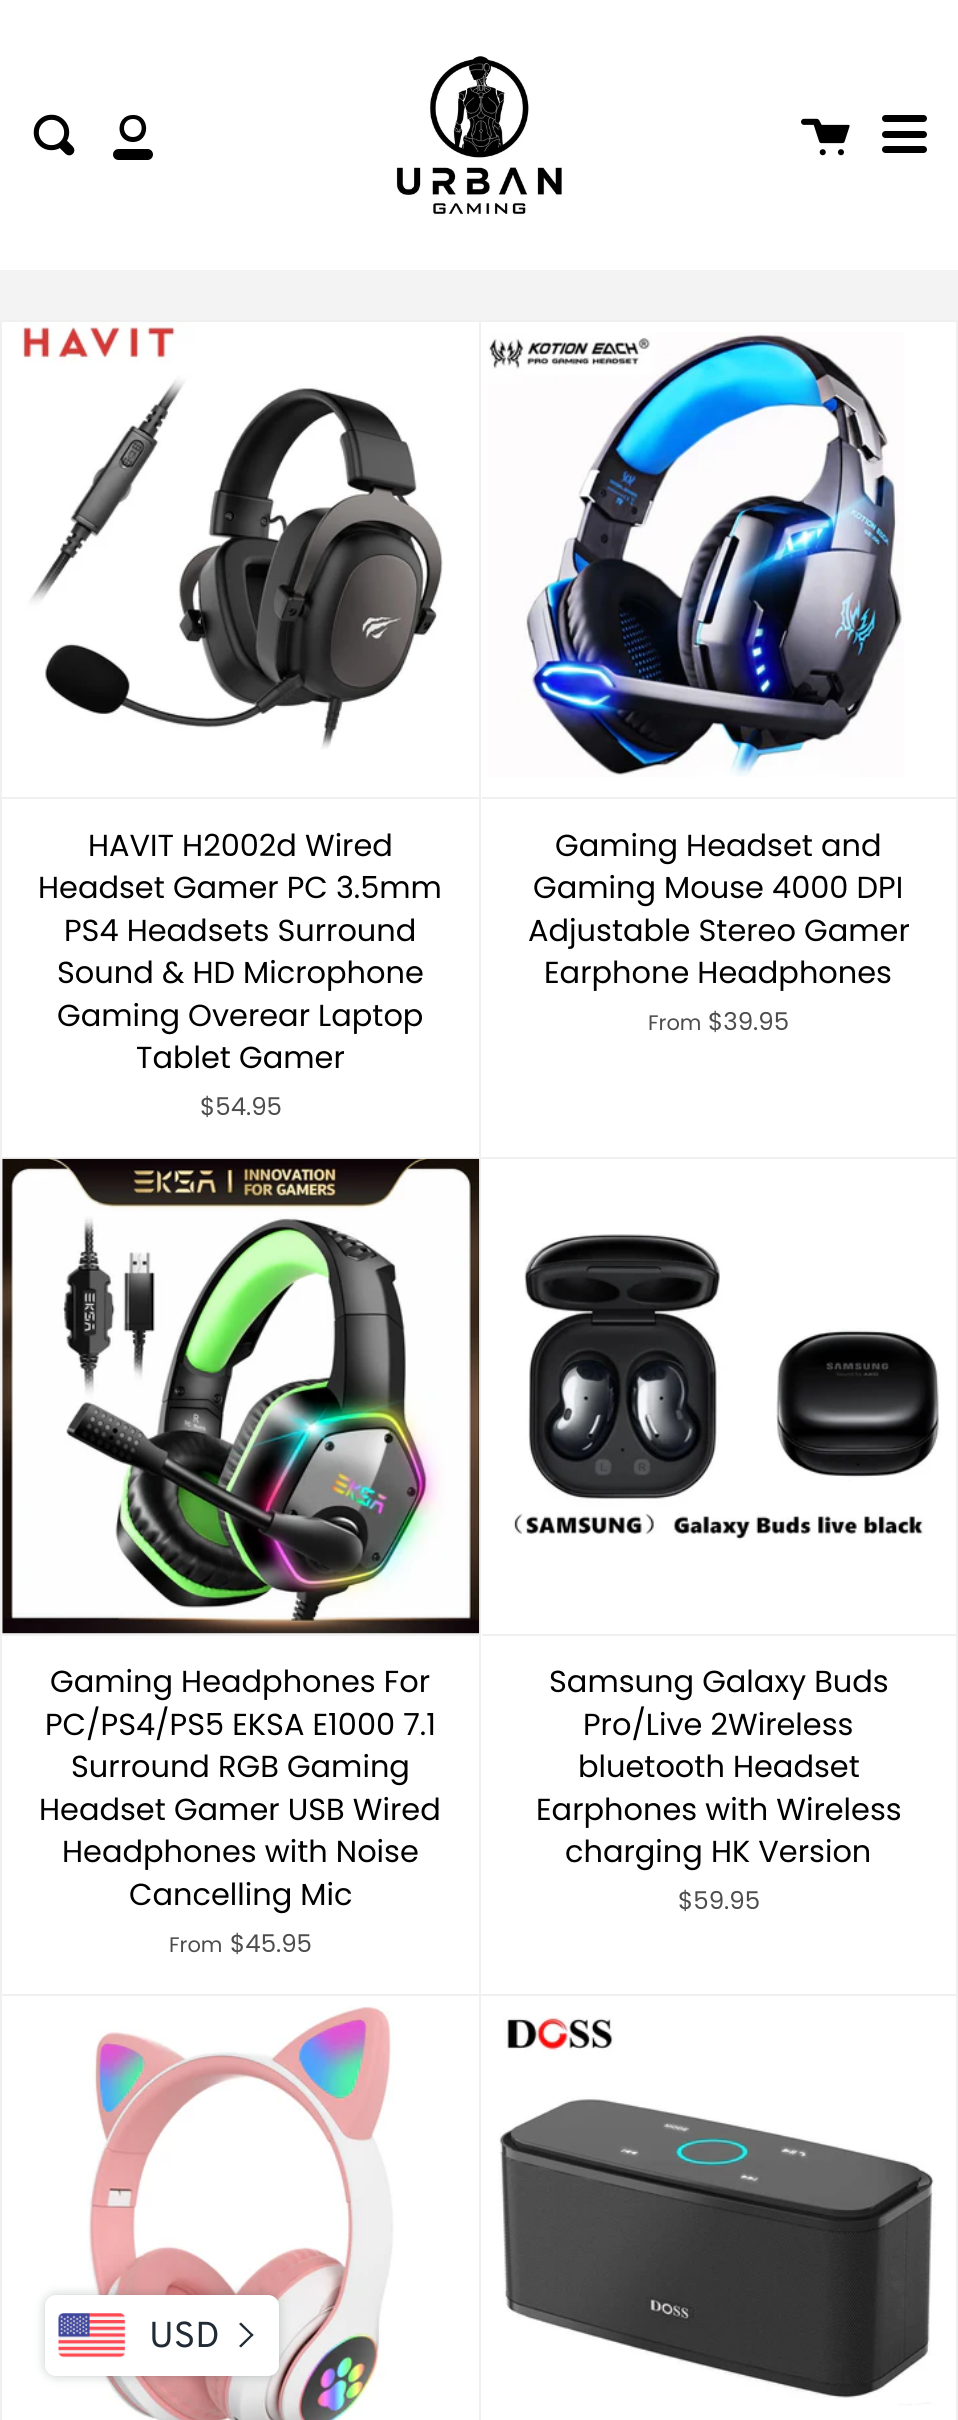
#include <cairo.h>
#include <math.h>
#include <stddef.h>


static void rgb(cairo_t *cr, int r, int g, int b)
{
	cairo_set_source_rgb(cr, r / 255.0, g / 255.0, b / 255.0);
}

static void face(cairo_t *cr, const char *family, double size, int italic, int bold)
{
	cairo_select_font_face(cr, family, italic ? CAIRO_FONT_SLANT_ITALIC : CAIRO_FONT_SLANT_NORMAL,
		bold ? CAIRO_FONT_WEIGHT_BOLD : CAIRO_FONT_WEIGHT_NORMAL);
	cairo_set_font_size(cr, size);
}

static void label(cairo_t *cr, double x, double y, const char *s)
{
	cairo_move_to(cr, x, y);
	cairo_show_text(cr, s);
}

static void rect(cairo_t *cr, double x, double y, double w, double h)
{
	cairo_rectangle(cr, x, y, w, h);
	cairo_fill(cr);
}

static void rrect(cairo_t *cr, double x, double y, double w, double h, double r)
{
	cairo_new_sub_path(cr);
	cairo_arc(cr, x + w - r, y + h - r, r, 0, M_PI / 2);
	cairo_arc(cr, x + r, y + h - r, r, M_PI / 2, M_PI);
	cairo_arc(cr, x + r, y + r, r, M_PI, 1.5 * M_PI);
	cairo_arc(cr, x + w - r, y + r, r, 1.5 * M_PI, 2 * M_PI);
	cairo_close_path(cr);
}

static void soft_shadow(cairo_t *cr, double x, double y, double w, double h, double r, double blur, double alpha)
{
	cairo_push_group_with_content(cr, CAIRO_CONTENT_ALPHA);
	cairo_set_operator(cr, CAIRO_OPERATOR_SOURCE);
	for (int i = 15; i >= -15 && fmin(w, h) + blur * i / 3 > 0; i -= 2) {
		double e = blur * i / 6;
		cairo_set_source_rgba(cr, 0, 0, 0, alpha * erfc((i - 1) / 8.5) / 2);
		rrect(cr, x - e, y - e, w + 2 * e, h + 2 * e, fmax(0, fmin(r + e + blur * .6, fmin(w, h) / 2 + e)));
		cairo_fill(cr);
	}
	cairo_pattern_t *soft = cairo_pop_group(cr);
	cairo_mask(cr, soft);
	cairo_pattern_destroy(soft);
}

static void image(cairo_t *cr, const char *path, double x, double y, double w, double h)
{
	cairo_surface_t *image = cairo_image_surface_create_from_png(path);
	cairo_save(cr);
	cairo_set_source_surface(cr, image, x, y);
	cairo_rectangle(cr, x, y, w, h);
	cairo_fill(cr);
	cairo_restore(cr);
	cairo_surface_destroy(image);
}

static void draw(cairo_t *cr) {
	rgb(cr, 243, 243, 243);
	cairo_paint(cr);
	rgb(cr, 255, 255, 255);
	rect(cr, 0, 0, 958, 270);
	image(cr, "image0.png", 396, 56, 166, 158);
	image(cr, "image1.png", 33, 114, 42, 42);
	rgb(cr, 0, 0, 0);
	cairo_new_path(cr);
	cairo_move_to(cr, 133, 142);
	cairo_curve_to(cr, 115, 142, 115, 115, 133, 115);
	cairo_curve_to(cr, 150.5, 114.5, 150.5, 142, 133, 142);
	cairo_close_path(cr);
	cairo_move_to(cr, 133, 137);
	cairo_curve_to(cr, 144.5, 137, 144.5, 119, 133, 119);
	cairo_curve_to(cr, 121, 119, 121, 137, 133, 137);
	cairo_close_path(cr);
	cairo_fill(cr);
	rrect(cr, 113, 149, 40, 11, 5.5);
	cairo_fill(cr);
	image(cr, "image2.png", 801, 118, 49, 38);
	cairo_new_path(cr);
	cairo_move_to(cr, 885.5, 115);
	cairo_line_to(cr, 920, 115);
	cairo_line_to(cr, 920, 122);
	cairo_line_to(cr, 885.5, 122);
	cairo_curve_to(cr, 883.5, 122, 882, 120.5, 882, 118.5);
	cairo_curve_to(cr, 882, 116.5, 883.5, 115, 885.5, 115);
	cairo_close_path(cr);
	cairo_fill(cr);
	cairo_new_path(cr);
	cairo_move_to(cr, 889, 115);
	cairo_line_to(cr, 923.5, 115);
	cairo_curve_to(cr, 925.5, 115, 927, 116.5, 927, 118.5);
	cairo_curve_to(cr, 927, 120.5, 925.5, 122, 923.5, 122);
	cairo_line_to(cr, 889, 122);
	cairo_close_path(cr);
	cairo_fill(cr);
	cairo_new_path(cr);
	cairo_move_to(cr, 885.5, 131);
	cairo_line_to(cr, 920, 131);
	cairo_line_to(cr, 920, 138);
	cairo_line_to(cr, 885.5, 138);
	cairo_curve_to(cr, 883.5, 138, 882, 136.5, 882, 134.5);
	cairo_curve_to(cr, 882, 132.5, 883.5, 131, 885.5, 131);
	cairo_close_path(cr);
	cairo_fill(cr);
	cairo_new_path(cr);
	cairo_move_to(cr, 889, 131);
	cairo_line_to(cr, 923.5, 131);
	cairo_curve_to(cr, 925.5, 131, 927, 132.5, 927, 134.5);
	cairo_curve_to(cr, 927, 136.5, 925.5, 138, 923.5, 138);
	cairo_line_to(cr, 889, 138);
	cairo_close_path(cr);
	cairo_fill(cr);
	cairo_new_path(cr);
	cairo_move_to(cr, 885.5, 146);
	cairo_line_to(cr, 920, 146);
	cairo_line_to(cr, 920, 153);
	cairo_line_to(cr, 885.5, 153);
	cairo_curve_to(cr, 883.5, 153, 882, 151.5, 882, 149.5);
	cairo_curve_to(cr, 882, 147.5, 883.5, 146, 885.5, 146);
	cairo_close_path(cr);
	cairo_fill(cr);
	cairo_new_path(cr);
	cairo_move_to(cr, 889, 146);
	cairo_line_to(cr, 923.5, 146);
	cairo_curve_to(cr, 925.5, 146, 927, 147.5, 927, 149.5);
	cairo_curve_to(cr, 927, 151.5, 925.5, 153, 923.5, 153);
	cairo_line_to(cr, 889, 153);
	cairo_close_path(cr);
	cairo_fill(cr);
	rgb(cr, 240, 240, 240);
	rect(cr, 0, 320, 2, 2100);
	rgb(cr, 255, 255, 255);
	rect(cr, 2, 322, 954, 835);
	rgb(cr, 240, 240, 240);
	rect(cr, 2, 320, 956, 2);
	rect(cr, 479, 320, 2, 839);
	rect(cr, 2, 797, 477, 2);
	image(cr, "image3.png", 22, 322, 421, 428);
	face(cr, "Poppins", 30.4, 0, 0);
	rgb(cr, 0, 0, 0);
	label(cr, 88, 856, "HAVIT H2002d Wired");
	label(cr, 38, 898, "Headset Gamer PC 3.5mm");
	label(cr, 64, 941, "PS4 Headsets Surround");
	label(cr, 57, 983, "Sound & HD Microphone");
	label(cr, 57, 1026, "Gaming Overear Laptop");
	label(cr, 136, 1068, "Tablet Gamer");
	face(cr, "Poppins", 24.5, 0, 0);
	rgb(cr, 77, 77, 77);
	label(cr, 200, 1115, "$54.95");
	rgb(cr, 240, 240, 240);
	rect(cr, 956, 320, 2, 839);
	rect(cr, 482, 797, 474, 2);
	image(cr, "image4.png", 488, 332, 416, 445);
	face(cr, "Poppins", 30.4, 0, 0);
	rgb(cr, 0, 0, 0);
	label(cr, 555, 856, "Gaming Headset and");
	label(cr, 533, 898, "Gaming Mouse 4000 DPI");
	label(cr, 528, 941, "Adjustable Stereo Gamer");
	label(cr, 544, 983, "Earphone Headphones");
	face(cr, "Poppins", 21, 0, 0);
	rgb(cr, 77, 77, 77);
	label(cr, 648, 1030, "From");
	face(cr, "Poppins", 24.5, 0, 0);
	label(cr, 708, 1030, "$39.95");
	rgb(cr, 255, 255, 255);
	rect(cr, 2, 1159, 954, 835);
	rgb(cr, 240, 240, 240);
	rect(cr, 2, 1157, 956, 2);
	rect(cr, 479, 1157, 2, 839);
	rect(cr, 2, 1634, 477, 2);
	image(cr, "image5.png", 2, 1158, 478, 476);
	face(cr, "Poppins", 30.4, 0, 0);
	rgb(cr, 0, 0, 0);
	label(cr, 50, 1692, "Gaming Headphones For");
	label(cr, 45, 1735, "PC/PS4/PS5 EKSA E1000 7.1");
	label(cr, 71, 1777, "Surround RGB Gaming");
	label(cr, 39, 1820, "Headset Gamer USB Wired");
	label(cr, 62, 1862, "Headphones with Noise");
	label(cr, 129, 1905, "Cancelling Mic");
	face(cr, "Poppins", 21, 0, 0);
	rgb(cr, 77, 77, 77);
	label(cr, 169, 1952, "From");
	face(cr, "Poppins", 24.5, 0, 0);
	label(cr, 230, 1952, "$45.95");
	rgb(cr, 240, 240, 240);
	rect(cr, 956, 1157, 2, 839);
	rect(cr, 482, 1634, 474, 2);
	image(cr, "image6.png", 513, 1233, 428, 307);
	face(cr, "Poppins", 30.4, 0, 0);
	rgb(cr, 0, 0, 0);
	label(cr, 549, 1692, "Samsung Galaxy Buds");
	label(cr, 583, 1735, "Pro/Live 2Wireless");
	label(cr, 578, 1777, "bluetooth Headset");
	label(cr, 536, 1820, "Earphones with Wireless");
	label(cr, 565, 1862, "charging HK Version");
	face(cr, "Poppins", 24.5, 0, 0);
	rgb(cr, 77, 77, 77);
	label(cr, 678, 1909, "$59.95");
	rgb(cr, 255, 255, 255);
	rect(cr, 2, 1996, 954, 424);
	rgb(cr, 240, 240, 240);
	rect(cr, 2, 1994, 956, 2);
	rect(cr, 479, 1994, 2, 426);
	image(cr, "image7.png", 87, 2006, 307, 414);
	rect(cr, 956, 1994, 2, 426);
	image(cr, "image8.png", 498, 2016, 438, 390);
	rgb(cr, 33, 43, 54);
	soft_shadow(cr, 45, 2295, 234, 81, 11, 5.5, 0.25);
	rgb(cr, 255, 255, 255);
	rrect(cr, 45, 2295, 234, 81, 11);
	cairo_fill(cr);
	image(cr, "image9.png", 58, 2313, 68, 45);
	face(cr, "Overpass", 36, 0, 0);
	rgb(cr, 33, 43, 54);
	label(cr, 149, 2347, "USD");
	cairo_new_path(cr);
	cairo_move_to(cr, 239, 2324);
	cairo_line_to(cr, 241, 2322.5);
	cairo_line_to(cr, 253.5, 2335);
	cairo_line_to(cr, 252, 2336.5);
	cairo_close_path(cr);
	cairo_fill(cr);
	cairo_new_path(cr);
	cairo_move_to(cr, 239, 2346);
	cairo_line_to(cr, 252, 2333.5);
	cairo_line_to(cr, 253.5, 2335);
	cairo_line_to(cr, 241, 2347.5);
	cairo_close_path(cr);
	cairo_fill(cr);
}

int main(void) {
	cairo_surface_t *surface = cairo_image_surface_create(CAIRO_FORMAT_RGB24, 958, 2420);
	cairo_t *cr = cairo_create(surface);
	cairo_font_options_t *options = cairo_font_options_create();
	cairo_font_options_set_hint_metrics(options, CAIRO_HINT_METRICS_OFF);
	cairo_font_options_set_hint_style(options, CAIRO_HINT_STYLE_NONE);
	cairo_set_font_options(cr, options);
	cairo_set_miter_limit(cr, 4);
	draw(cr);
	cairo_surface_write_to_png(surface, "render.png");
	cairo_font_options_destroy(options);
	cairo_destroy(cr);
	cairo_surface_destroy(surface);
	return 0;
}
